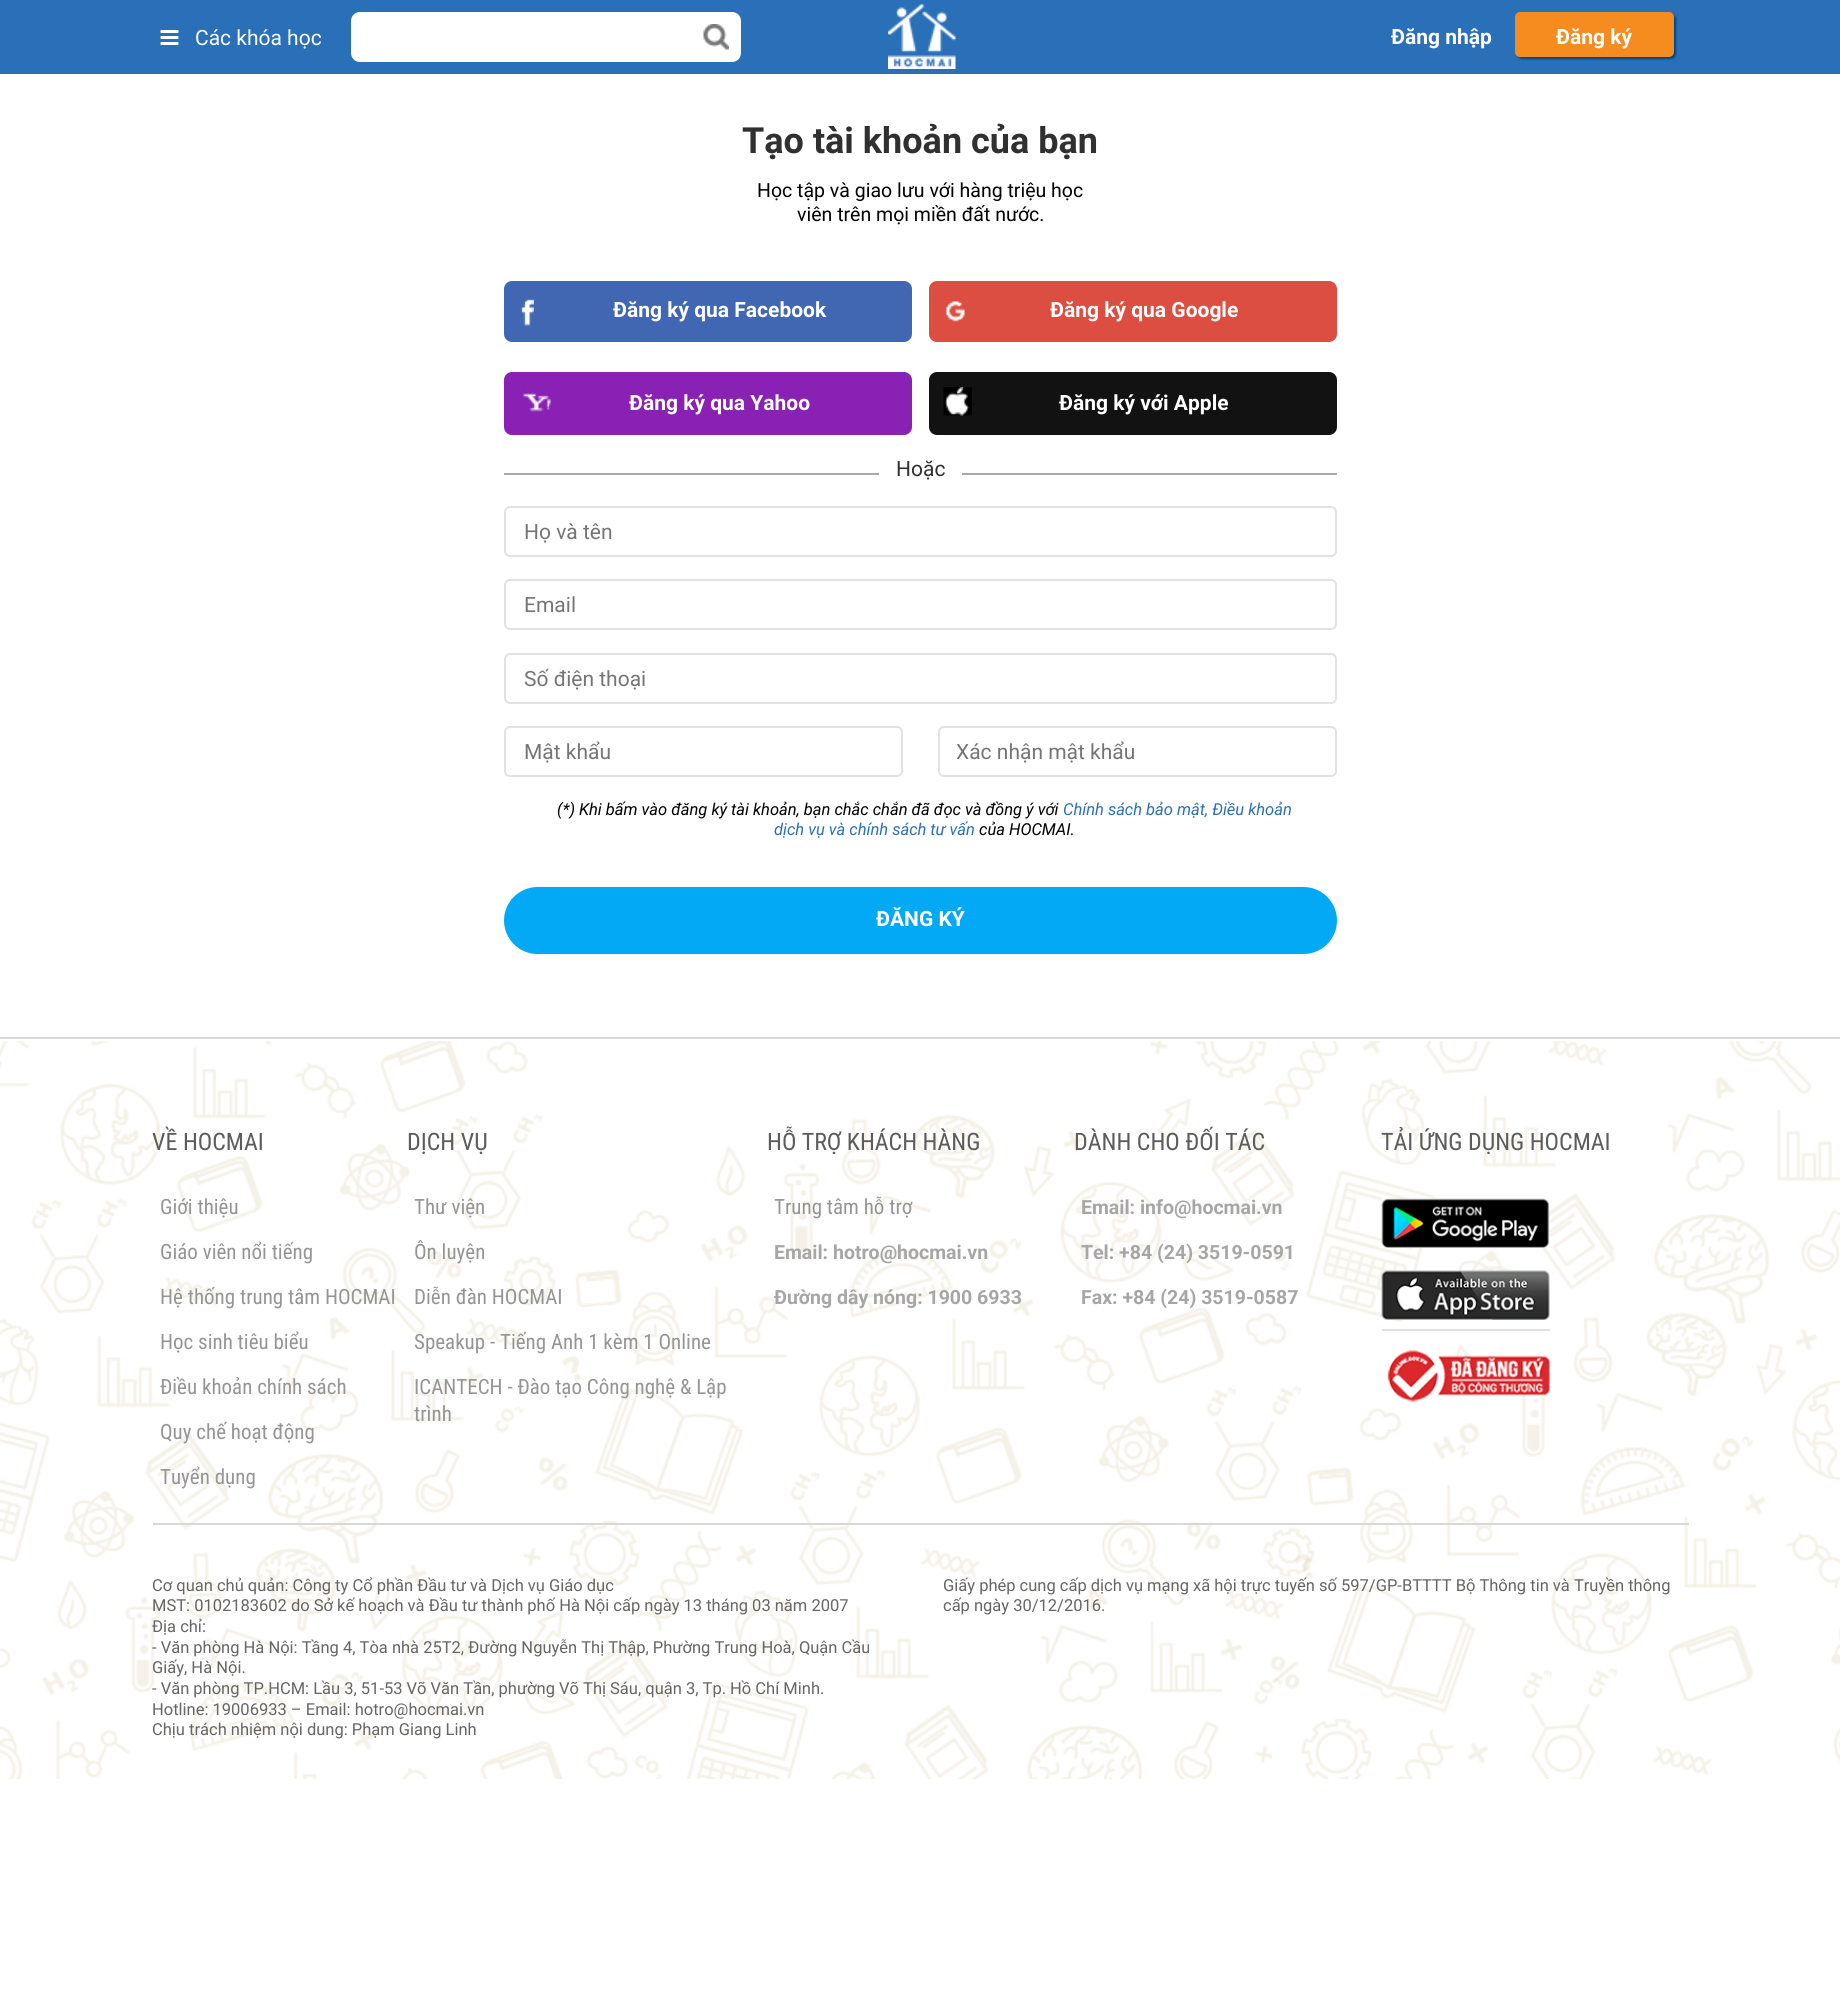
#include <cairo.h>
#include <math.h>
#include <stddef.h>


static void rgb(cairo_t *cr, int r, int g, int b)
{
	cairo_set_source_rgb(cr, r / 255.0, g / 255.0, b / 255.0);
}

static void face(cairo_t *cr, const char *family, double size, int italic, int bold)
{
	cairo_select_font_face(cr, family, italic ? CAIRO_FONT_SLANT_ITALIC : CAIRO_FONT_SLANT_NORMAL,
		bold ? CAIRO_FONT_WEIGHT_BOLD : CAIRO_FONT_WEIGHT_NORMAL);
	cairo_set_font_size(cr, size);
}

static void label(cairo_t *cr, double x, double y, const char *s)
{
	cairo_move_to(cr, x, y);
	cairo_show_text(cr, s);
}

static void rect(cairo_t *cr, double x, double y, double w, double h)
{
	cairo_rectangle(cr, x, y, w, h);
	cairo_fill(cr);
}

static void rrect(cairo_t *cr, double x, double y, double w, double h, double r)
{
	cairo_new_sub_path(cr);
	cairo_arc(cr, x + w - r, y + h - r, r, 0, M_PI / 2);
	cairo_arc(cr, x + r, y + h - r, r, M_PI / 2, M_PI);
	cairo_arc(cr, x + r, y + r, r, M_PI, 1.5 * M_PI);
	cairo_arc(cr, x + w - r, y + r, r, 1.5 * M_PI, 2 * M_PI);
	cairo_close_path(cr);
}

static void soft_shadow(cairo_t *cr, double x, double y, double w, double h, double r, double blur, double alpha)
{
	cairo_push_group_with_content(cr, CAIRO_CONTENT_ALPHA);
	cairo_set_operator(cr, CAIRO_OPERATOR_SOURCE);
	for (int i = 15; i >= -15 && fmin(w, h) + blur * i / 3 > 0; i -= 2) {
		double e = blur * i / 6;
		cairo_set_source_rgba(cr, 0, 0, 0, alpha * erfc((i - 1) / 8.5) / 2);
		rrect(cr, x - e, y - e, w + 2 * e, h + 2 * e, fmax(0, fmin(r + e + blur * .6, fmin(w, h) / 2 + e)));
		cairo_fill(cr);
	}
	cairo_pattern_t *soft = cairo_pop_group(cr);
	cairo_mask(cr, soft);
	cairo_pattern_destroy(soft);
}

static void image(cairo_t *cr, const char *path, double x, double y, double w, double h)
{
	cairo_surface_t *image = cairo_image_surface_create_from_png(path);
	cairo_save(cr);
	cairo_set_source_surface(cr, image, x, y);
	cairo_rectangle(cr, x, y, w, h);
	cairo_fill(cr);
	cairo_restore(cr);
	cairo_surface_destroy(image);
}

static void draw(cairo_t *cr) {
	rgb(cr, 255, 255, 255);
	cairo_paint(cr);
	rgb(cr, 42, 112, 184);
	rect(cr, 0, 0, 1840, 74);
	image(cr, "image0.png", 160, 30, 19, 15);
	face(cr, "Roboto", 21, 0, 0);
	rgb(cr, 255, 255, 255);
	label(cr, 195, 45, "Các khóa học");
	cairo_new_path(cr);
	cairo_move_to(cr, 360, 12);
	cairo_line_to(cr, 692, 12);
	cairo_line_to(cr, 692, 62);
	cairo_line_to(cr, 360, 62);
	cairo_curve_to(cr, 355, 62, 351, 58, 351, 53);
	cairo_line_to(cr, 351, 21);
	cairo_curve_to(cr, 351, 16, 355, 12, 360, 12);
	cairo_close_path(cr);
	cairo_fill(cr);
	cairo_new_path(cr);
	cairo_move_to(cr, 692, 12);
	cairo_line_to(cr, 732, 12);
	cairo_curve_to(cr, 737, 12, 741, 16, 741, 21);
	cairo_line_to(cr, 741, 53);
	cairo_curve_to(cr, 741, 58, 737, 62, 732, 62);
	cairo_line_to(cr, 692, 62);
	cairo_close_path(cr);
	cairo_fill(cr);
	image(cr, "image1.png", 703, 24, 26, 26);
	image(cr, "image2.png", 888, 4, 68, 65);
	face(cr, "Roboto", 21, 0, 1);
	label(cr, 1391, 44, "Đăng nhập");
	rgb(cr, 0, 71, 118);
	soft_shadow(cr, 1517, 14, 159, 45, 5, 1, 1);
	rgb(cr, 246, 139, 32);
	rrect(cr, 1515, 12, 159, 45, 5);
	cairo_fill(cr);
	rgb(cr, 255, 255, 255);
	label(cr, 1556, 44, "Đăng ký");
	face(cr, "Roboto", 36, 0, 1);
	rgb(cr, 48, 48, 48);
	label(cr, 742, 153, "Tạo tài khoản của bạn");
	face(cr, "Roboto", 19.5, 0, 0);
	rgb(cr, 0, 0, 0);
	label(cr, 757, 197, "Học tập và giao lưu với hàng triệu học");
	label(cr, 797, 221, "viên trên mọi miền đất nước.");
	rgb(cr, 66, 103, 178);
	rrect(cr, 504, 281, 408, 61, 8);
	cairo_fill(cr);
	image(cr, "image3.png", 521, 299, 13, 27);
	face(cr, "Roboto", 21, 0, 1);
	rgb(cr, 255, 255, 255);
	label(cr, 613, 317, "Đăng ký qua Facebook");
	rgb(cr, 220, 78, 65);
	rrect(cr, 929, 281, 408, 61, 8);
	cairo_fill(cr);
	image(cr, "image4.png", 945, 301, 20, 21);
	rgb(cr, 255, 255, 255);
	label(cr, 1050, 317, "Đăng ký qua Google");
	rgb(cr, 137, 33, 180);
	rrect(cr, 504, 372, 408, 63, 8);
	cairo_fill(cr);
	image(cr, "image5.png", 523, 389, 29, 23);
	rgb(cr, 255, 255, 255);
	label(cr, 629, 410, "Đăng ký qua Yahoo");
	rgb(cr, 19, 18, 18);
	rrect(cr, 929, 372, 408, 63, 8);
	cairo_fill(cr);
	image(cr, "image6.png", 943, 387, 29, 29);
	rgb(cr, 255, 255, 255);
	label(cr, 1059, 410, "Đăng ký với Apple");
	rgb(cr, 169, 169, 169);
	rect(cr, 504, 473, 375, 2);
	face(cr, "Roboto", 21, 0, 0);
	rgb(cr, 48, 48, 48);
	label(cr, 896, 476, "Hoặc");
	rgb(cr, 169, 169, 169);
	rect(cr, 962, 473, 375, 2);
	rrect(cr, 505, 507, 831, 49, 5);
	rgb(cr, 226, 226, 226);
	cairo_stroke(cr);
	rgb(cr, 117, 117, 117);
	label(cr, 524, 539, "Họ và tên");
	rrect(cr, 505, 580, 831, 49, 5);
	rgb(cr, 226, 226, 226);
	cairo_stroke(cr);
	rgb(cr, 117, 117, 117);
	label(cr, 524, 612, "Email");
	rrect(cr, 505, 654, 831, 49, 5);
	rgb(cr, 226, 226, 226);
	cairo_stroke(cr);
	rgb(cr, 117, 117, 117);
	label(cr, 524, 686, "Số điện thoại");
	rrect(cr, 505, 727, 397, 49, 5);
	rgb(cr, 226, 226, 226);
	cairo_stroke(cr);
	rgb(cr, 117, 117, 117);
	label(cr, 524, 759, "Mật khẩu");
	rrect(cr, 939, 727, 397, 49, 5);
	rgb(cr, 226, 226, 226);
	cairo_stroke(cr);
	rgb(cr, 117, 117, 117);
	label(cr, 956, 759, "Xác nhận mật khẩu");
	face(cr, "Roboto", 16.5, 1, 0);
	rgb(cr, 0, 0, 0);
	label(cr, 557, 815, "(*) Khi bấm vào đăng ký tài khoản, bạn chắc chắn đã đọc và đồng ý với");
	rgb(cr, 42, 112, 184);
	label(cr, 1063, 815, "Chính sách bảo mật, Điều khoản");
	label(cr, 774, 835, "dịch vụ và chính sách tư vấn");
	rgb(cr, 0, 0, 0);
	label(cr, 979, 835, "của HOCMAI.");
	rgb(cr, 3, 169, 244);
	rrect(cr, 504, 887, 833, 67, 33.5);
	cairo_fill(cr);
	face(cr, "Roboto", 21, 0, 1);
	rgb(cr, 255, 255, 255);
	label(cr, 876, 926, "ĐĂNG KÝ");
	image(cr, "image7.png", 0, 1041, 1840, 738);
	rgb(cr, 216, 216, 216);
	rect(cr, 0, 1037, 1840, 2);
	rect(cr, 153, 1523, 1536, 2);
	face(cr, "Roboto Condensed", 24, 0, 0);
	rgb(cr, 92, 92, 92);
	label(cr, 152, 1150, "VỀ HOCMAI");
	face(cr, "Roboto Condensed", 21, 0, 0);
	rgb(cr, 149, 149, 149);
	label(cr, 160, 1214, "Giới thiệu");
	label(cr, 160, 1259, "Giáo viên nổi tiếng");
	label(cr, 160, 1304, "Hệ thống trung tâm HOCMAI");
	label(cr, 160, 1349, "Học sinh tiêu biểu");
	label(cr, 160, 1394, "Điều khoản chính sách");
	label(cr, 160, 1439, "Quy chế hoạt động");
	label(cr, 160, 1484, "Tuyển dụng");
	face(cr, "Roboto Condensed", 24, 0, 0);
	rgb(cr, 92, 92, 92);
	label(cr, 407, 1150, "DỊCH VỤ");
	face(cr, "Roboto Condensed", 21, 0, 0);
	rgb(cr, 149, 149, 149);
	label(cr, 414, 1214, "Thư viện");
	label(cr, 414, 1259, "Ôn luyện");
	label(cr, 414, 1304, "Diễn đàn HOCMAI");
	label(cr, 414, 1349, "Speakup - Tiếng Anh 1 kèm 1 Online");
	label(cr, 414, 1394, "ICANTECH - Đào tạo Công nghệ & Lập");
	label(cr, 414, 1421, "trình");
	face(cr, "Roboto Condensed", 24, 0, 0);
	rgb(cr, 92, 92, 92);
	label(cr, 767, 1150, "HỖ TRỢ KHÁCH HÀNG");
	face(cr, "Roboto Condensed", 21, 0, 0);
	rgb(cr, 149, 149, 149);
	label(cr, 774, 1214, "Trung tâm hỗ trợ");
	face(cr, "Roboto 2", 19.5, 0, 1);
	rgb(cr, 166, 166, 166);
	label(cr, 774, 1259, "Email: hotro@hocmai.vn");
	label(cr, 774, 1304, "Đường dây nóng: 1900 6933");
	face(cr, "Roboto Condensed", 24, 0, 0);
	rgb(cr, 92, 92, 92);
	label(cr, 1074, 1150, "DÀNH CHO ĐỐI TÁC");
	face(cr, "Roboto 2", 19.5, 0, 1);
	rgb(cr, 166, 166, 166);
	label(cr, 1081, 1214, "Email: info@hocmai.vn");
	label(cr, 1081, 1259, "Tel: +84 (24) 3519-0591");
	label(cr, 1081, 1304, "Fax: +84 (24) 3519-0587");
	face(cr, "Roboto Condensed", 24, 0, 0);
	rgb(cr, 92, 92, 92);
	label(cr, 1381, 1150, "TẢI ỨNG DỤNG HOCMAI");
	image(cr, "image8.png", 1381, 1198, 169, 50);
	image(cr, "image9.png", 1381, 1270, 169, 50);
	rgb(cr, 226, 223, 223);
	rect(cr, 1382, 1329, 168, 2);
	image(cr, "image10.png", 1387, 1350, 163, 52);
	face(cr, "Roboto", 16.5, 0, 0);
	rgb(cr, 102, 101, 100);
	label(cr, 152, 1591, "Cơ quan chủ quản: Công ty Cổ phần Đầu tư và Dịch vụ Giáo dục");
	label(cr, 152, 1611, "MST: 0102183602 do Sở kế hoạch và Đầu tư thành phố Hà Nội cấp ngày 13 tháng 03 năm 2007");
	label(cr, 152, 1632, "Địa chỉ:");
	label(cr, 152, 1653, "- Văn phòng Hà Nội: Tầng 4, Tòa nhà 25T2, Đường Nguyễn Thị Thập, Phường Trung Hoà, Quận Cầu");
	label(cr, 152, 1673, "Giấy, Hà Nội.");
	label(cr, 152, 1694, "- Văn phòng TP.HCM: Lầu 3, 51-53 Võ Văn Tần, phường Võ Thị Sáu, quận 3, Tp. Hồ Chí Minh.");
	label(cr, 152, 1715, "Hotline: 19006933 – Email: hotro@hocmai.vn");
	label(cr, 152, 1735, "Chịu trách nhiệm nội dung: Phạm Giang Linh");
	label(cr, 943, 1591, "Giấy phép cung cấp dịch vụ mạng xã hội trực tuyến số 597/GP-BTTTT Bộ Thông tin và Truyền thông");
	label(cr, 943, 1611, "cấp ngày 30/12/2016.");
}

int main(void) {
	cairo_surface_t *surface = cairo_image_surface_create(CAIRO_FORMAT_RGB24, 1840, 2000);
	cairo_t *cr = cairo_create(surface);
	cairo_font_options_t *options = cairo_font_options_create();
	cairo_font_options_set_hint_metrics(options, CAIRO_HINT_METRICS_OFF);
	cairo_font_options_set_hint_style(options, CAIRO_HINT_STYLE_NONE);
	cairo_set_font_options(cr, options);
	cairo_set_miter_limit(cr, 4);
	draw(cr);
	cairo_surface_write_to_png(surface, "render.png");
	cairo_font_options_destroy(options);
	cairo_destroy(cr);
	cairo_surface_destroy(surface);
	return 0;
}
